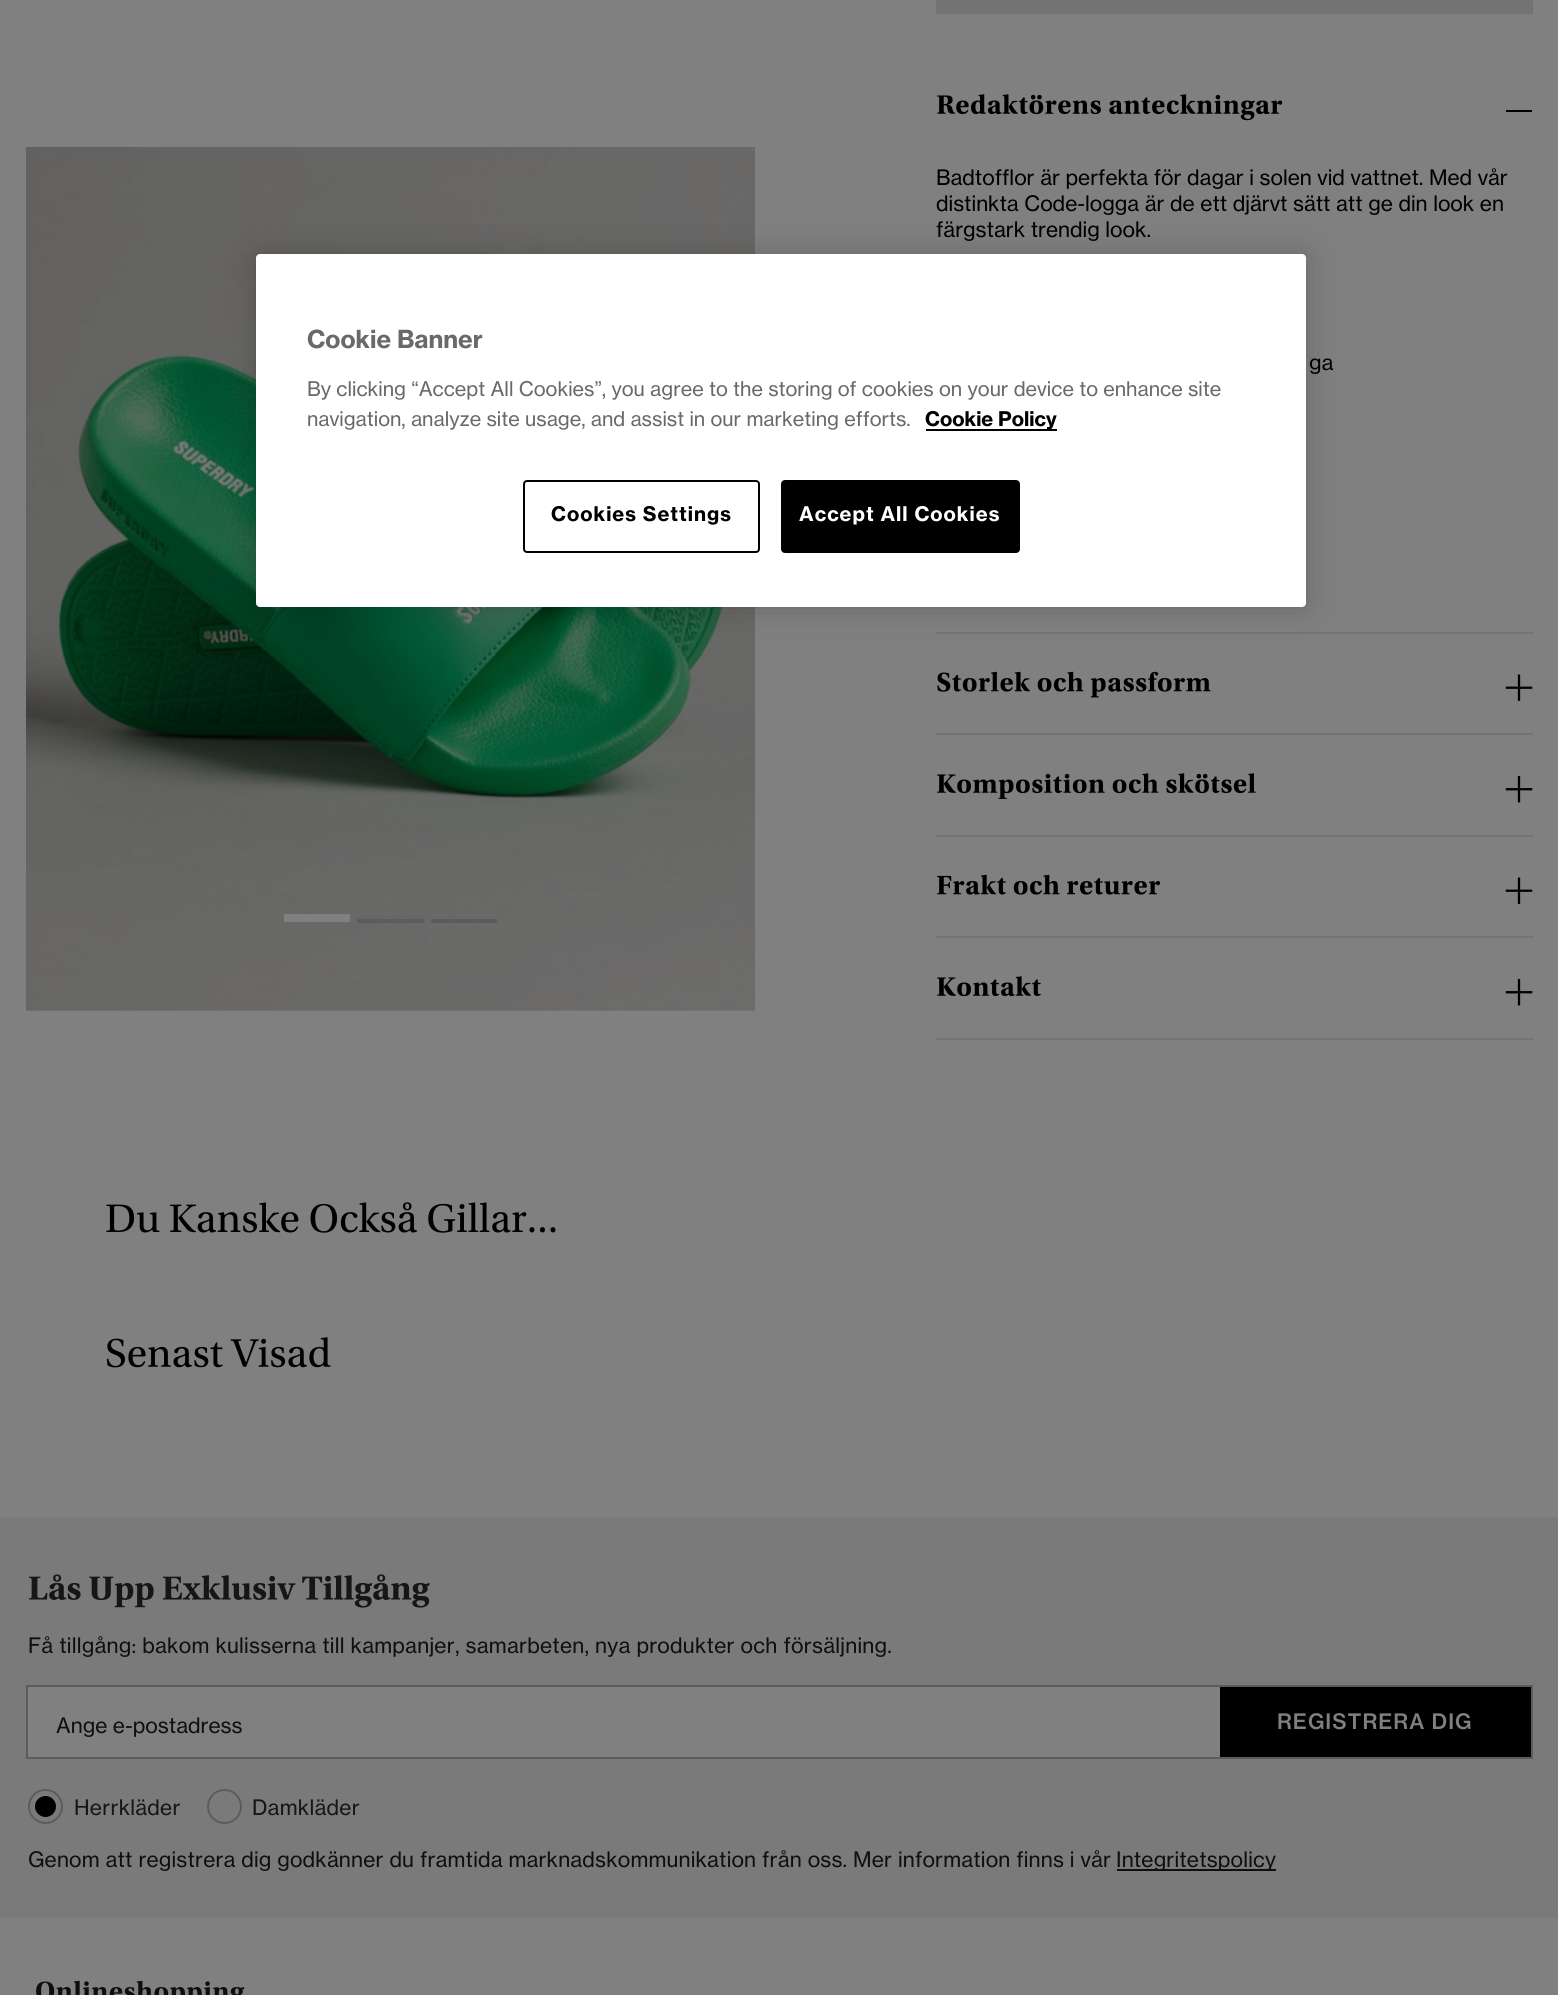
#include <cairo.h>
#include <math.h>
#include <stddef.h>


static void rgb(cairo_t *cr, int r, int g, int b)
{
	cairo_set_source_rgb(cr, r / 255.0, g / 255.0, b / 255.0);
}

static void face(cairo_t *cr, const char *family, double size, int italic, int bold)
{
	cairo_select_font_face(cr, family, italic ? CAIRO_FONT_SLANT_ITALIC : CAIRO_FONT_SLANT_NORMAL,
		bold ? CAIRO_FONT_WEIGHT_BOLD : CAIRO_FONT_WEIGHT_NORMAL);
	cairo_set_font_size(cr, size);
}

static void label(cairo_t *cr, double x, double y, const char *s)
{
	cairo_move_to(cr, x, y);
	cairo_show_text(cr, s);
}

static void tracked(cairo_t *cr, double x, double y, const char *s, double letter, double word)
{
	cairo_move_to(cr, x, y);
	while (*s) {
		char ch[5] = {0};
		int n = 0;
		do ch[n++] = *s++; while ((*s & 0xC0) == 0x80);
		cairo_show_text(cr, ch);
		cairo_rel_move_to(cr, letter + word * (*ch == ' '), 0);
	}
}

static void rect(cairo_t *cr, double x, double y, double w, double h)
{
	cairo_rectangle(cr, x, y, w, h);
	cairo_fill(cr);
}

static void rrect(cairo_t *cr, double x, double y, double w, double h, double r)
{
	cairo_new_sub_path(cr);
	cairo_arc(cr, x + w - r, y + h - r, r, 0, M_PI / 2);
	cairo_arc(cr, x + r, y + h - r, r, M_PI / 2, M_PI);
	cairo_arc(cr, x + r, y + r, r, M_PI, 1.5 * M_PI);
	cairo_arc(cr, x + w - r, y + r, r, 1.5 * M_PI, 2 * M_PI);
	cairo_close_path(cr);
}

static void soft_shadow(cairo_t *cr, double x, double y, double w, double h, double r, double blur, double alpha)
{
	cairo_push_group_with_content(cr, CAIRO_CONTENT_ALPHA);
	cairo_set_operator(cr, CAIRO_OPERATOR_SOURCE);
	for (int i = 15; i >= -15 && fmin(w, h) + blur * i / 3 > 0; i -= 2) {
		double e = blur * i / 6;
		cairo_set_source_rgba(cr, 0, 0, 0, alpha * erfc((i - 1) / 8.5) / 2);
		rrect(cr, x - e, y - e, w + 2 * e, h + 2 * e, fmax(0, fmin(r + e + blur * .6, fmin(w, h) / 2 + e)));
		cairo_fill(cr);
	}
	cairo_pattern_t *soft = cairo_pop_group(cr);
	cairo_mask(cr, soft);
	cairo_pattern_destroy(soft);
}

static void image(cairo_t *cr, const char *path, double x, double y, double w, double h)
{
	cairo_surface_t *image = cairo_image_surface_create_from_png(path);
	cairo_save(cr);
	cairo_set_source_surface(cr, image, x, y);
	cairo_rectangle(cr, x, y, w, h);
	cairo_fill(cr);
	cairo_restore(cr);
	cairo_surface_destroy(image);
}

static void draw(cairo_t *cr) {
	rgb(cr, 128, 128, 128);
	cairo_paint(cr);
	image(cr, "image0.png", 26, 147, 729, 864);
	rgb(cr, 128, 128, 128);
	rect(cr, 284, 914, 66, 8);
	rgb(cr, 92, 92, 92);
	rect(cr, 357, 919, 67, 4);
	rect(cr, 431, 919, 66, 4);
	rgb(cr, 115, 115, 115);
	rect(cr, 936, 0, 597, 14);
	rect(cr, 936, 632, 597, 2);
	image(cr, "image1.png", 937, 94, 346, 27);
	rgb(cr, 0, 0, 0);
	rect(cr, 1506, 110, 26, 2);
	face(cr, "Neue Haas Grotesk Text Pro", 21, 0, 0);
	label(cr, 936, 185, "Badtofflor är perfekta för dagar i solen vid vattnet. Med vår");
	label(cr, 936, 211, "distinkta Code-logga är de ett djärvt sätt att ge din look en");
	label(cr, 936, 237, "färgstark trendig look.");
	label(cr, 1309, 370, "ga");
	rgb(cr, 115, 115, 115);
	rect(cr, 936, 733, 597, 2);
	image(cr, "image2.png", 937, 671, 274, 27);
	image(cr, "image3.png", 1505, 674, 28, 27);
	rect(cr, 936, 835, 597, 2);
	image(cr, "image4.png", 937, 773, 319, 26);
	image(cr, "image5.png", 1505, 776, 28, 27);
	rect(cr, 936, 936, 597, 2);
	image(cr, "image6.png", 937, 874, 223, 21);
	image(cr, "image3.png", 1505, 877, 28, 27);
	rect(cr, 936, 1038, 597, 2);
	image(cr, "image7.png", 937, 976, 104, 21);
	image(cr, "image5.png", 1505, 979, 28, 27);
	image(cr, "image8.png", 106, 1202, 450, 31);
	image(cr, "image9.png", 107, 1337, 224, 31);
	rgb(cr, 122, 122, 122);
	rect(cr, 0, 1517, 1558, 401);
	image(cr, "image10.png", 29, 1574, 401, 34);
	rgb(cr, 15, 15, 15);
	tracked(cr, 28, 1653, "Få tillgång: bakom kulisserna till kampanjer, samarbeten, nya produkter och försäljning.", 0.25, 0);
	rgb(cr, 128, 128, 128);
	rect(cr, 28, 1687, 1192, 70);
	cairo_rectangle(cr, 27, 1686, 1505, 72);
	rgb(cr, 92, 92, 92);
	cairo_stroke(cr);
	rgb(cr, 15, 15, 15);
	label(cr, 56, 1733, "Ange e-postadress");
	rgb(cr, 0, 0, 0);
	rect(cr, 1220, 1687, 311, 70);
	face(cr, "Neue Haas Grotesk Text Pro Medium", 21, 0, 0);
	rgb(cr, 128, 128, 128);
	tracked(cr, 1277, 1729, "REGISTRERA DIG", 1, 0);
	cairo_new_path(cr);
	cairo_arc(cr, 45.5, 1806.5, 16.5, 0, 2 * M_PI);
	rgb(cr, 92, 92, 92);
	cairo_stroke(cr);
	rgb(cr, 0, 0, 0);
	cairo_arc(cr, 45.5, 1806.5, 10.5, 0, 2 * M_PI);
	cairo_fill(cr);
	face(cr, "Neue Haas Grotesk Text Pro", 21, 0, 0);
	rgb(cr, 22, 22, 22);
	tracked(cr, 74, 1815, "Herrkläder", 0.25, 0);
	cairo_new_path(cr);
	cairo_arc(cr, 224.5, 1806.5, 16.5, 0, 2 * M_PI);
	rgb(cr, 92, 92, 92);
	cairo_stroke(cr);
	rgb(cr, 22, 22, 22);
	tracked(cr, 252, 1815, "Damkläder", 0.25, 0);
	rgb(cr, 15, 15, 15);
	tracked(cr, 28, 1867, "Genom att registrera dig godkänner du framtida marknadskommunikation från oss. Mer information finns i vår", 0.18, 0);
	rect(cr, 1117, 1869, 159, 2);
	tracked(cr, 1116, 1867, "Integritetspolicy", 0.18, 0);
	image(cr, "image11.png", 36, 1980, 209, 15);
	rgb(cr, 0, 0, 0);
	soft_shadow(cr, 256, 254, 1050, 353, 4, 16, 0.2);
	rgb(cr, 255, 255, 255);
	rrect(cr, 256, 254, 1050, 353, 4);
	cairo_fill(cr);
	face(cr, "Neue Haas Grotesk Text Pro", 24.5, 0, 1);
	rgb(cr, 105, 105, 105);
	label(cr, 307, 348, "Cookie Banner");
	face(cr, "Neue Haas Grotesk Text Pro", 19.9, 0, 0);
	label(cr, 307, 396, "By clicking “Accept All Cookies”, you agree to the storing of cookies on your device to enhance site");
	label(cr, 307, 426, "navigation, analyze site usage, and assist in our marketing efforts.");
	rgb(cr, 0, 0, 0);
	rect(cr, 926, 429, 131, 2);
	face(cr, "Neue Haas Grotesk Text Pro", 19.9, 0, 1);
	label(cr, 925, 426, "Cookie Policy");
	rrect(cr, 524, 481, 235, 71, 3);
	cairo_stroke(cr);
	tracked(cr, 551, 521, "Cookies Settings", 1, 0);
	rrect(cr, 782, 481, 237, 71, 3);
	cairo_fill_preserve(cr);
	cairo_stroke(cr);
	rgb(cr, 255, 255, 255);
	tracked(cr, 799, 521, "Accept All Cookies", 1, 0);
}

int main(void) {
	cairo_surface_t *surface = cairo_image_surface_create(CAIRO_FORMAT_RGB24, 1558, 1995);
	cairo_t *cr = cairo_create(surface);
	cairo_font_options_t *options = cairo_font_options_create();
	cairo_font_options_set_hint_metrics(options, CAIRO_HINT_METRICS_OFF);
	cairo_font_options_set_hint_style(options, CAIRO_HINT_STYLE_NONE);
	cairo_set_font_options(cr, options);
	cairo_set_miter_limit(cr, 4);
	draw(cr);
	cairo_surface_write_to_png(surface, "render.png");
	cairo_font_options_destroy(options);
	cairo_destroy(cr);
	cairo_surface_destroy(surface);
	return 0;
}
